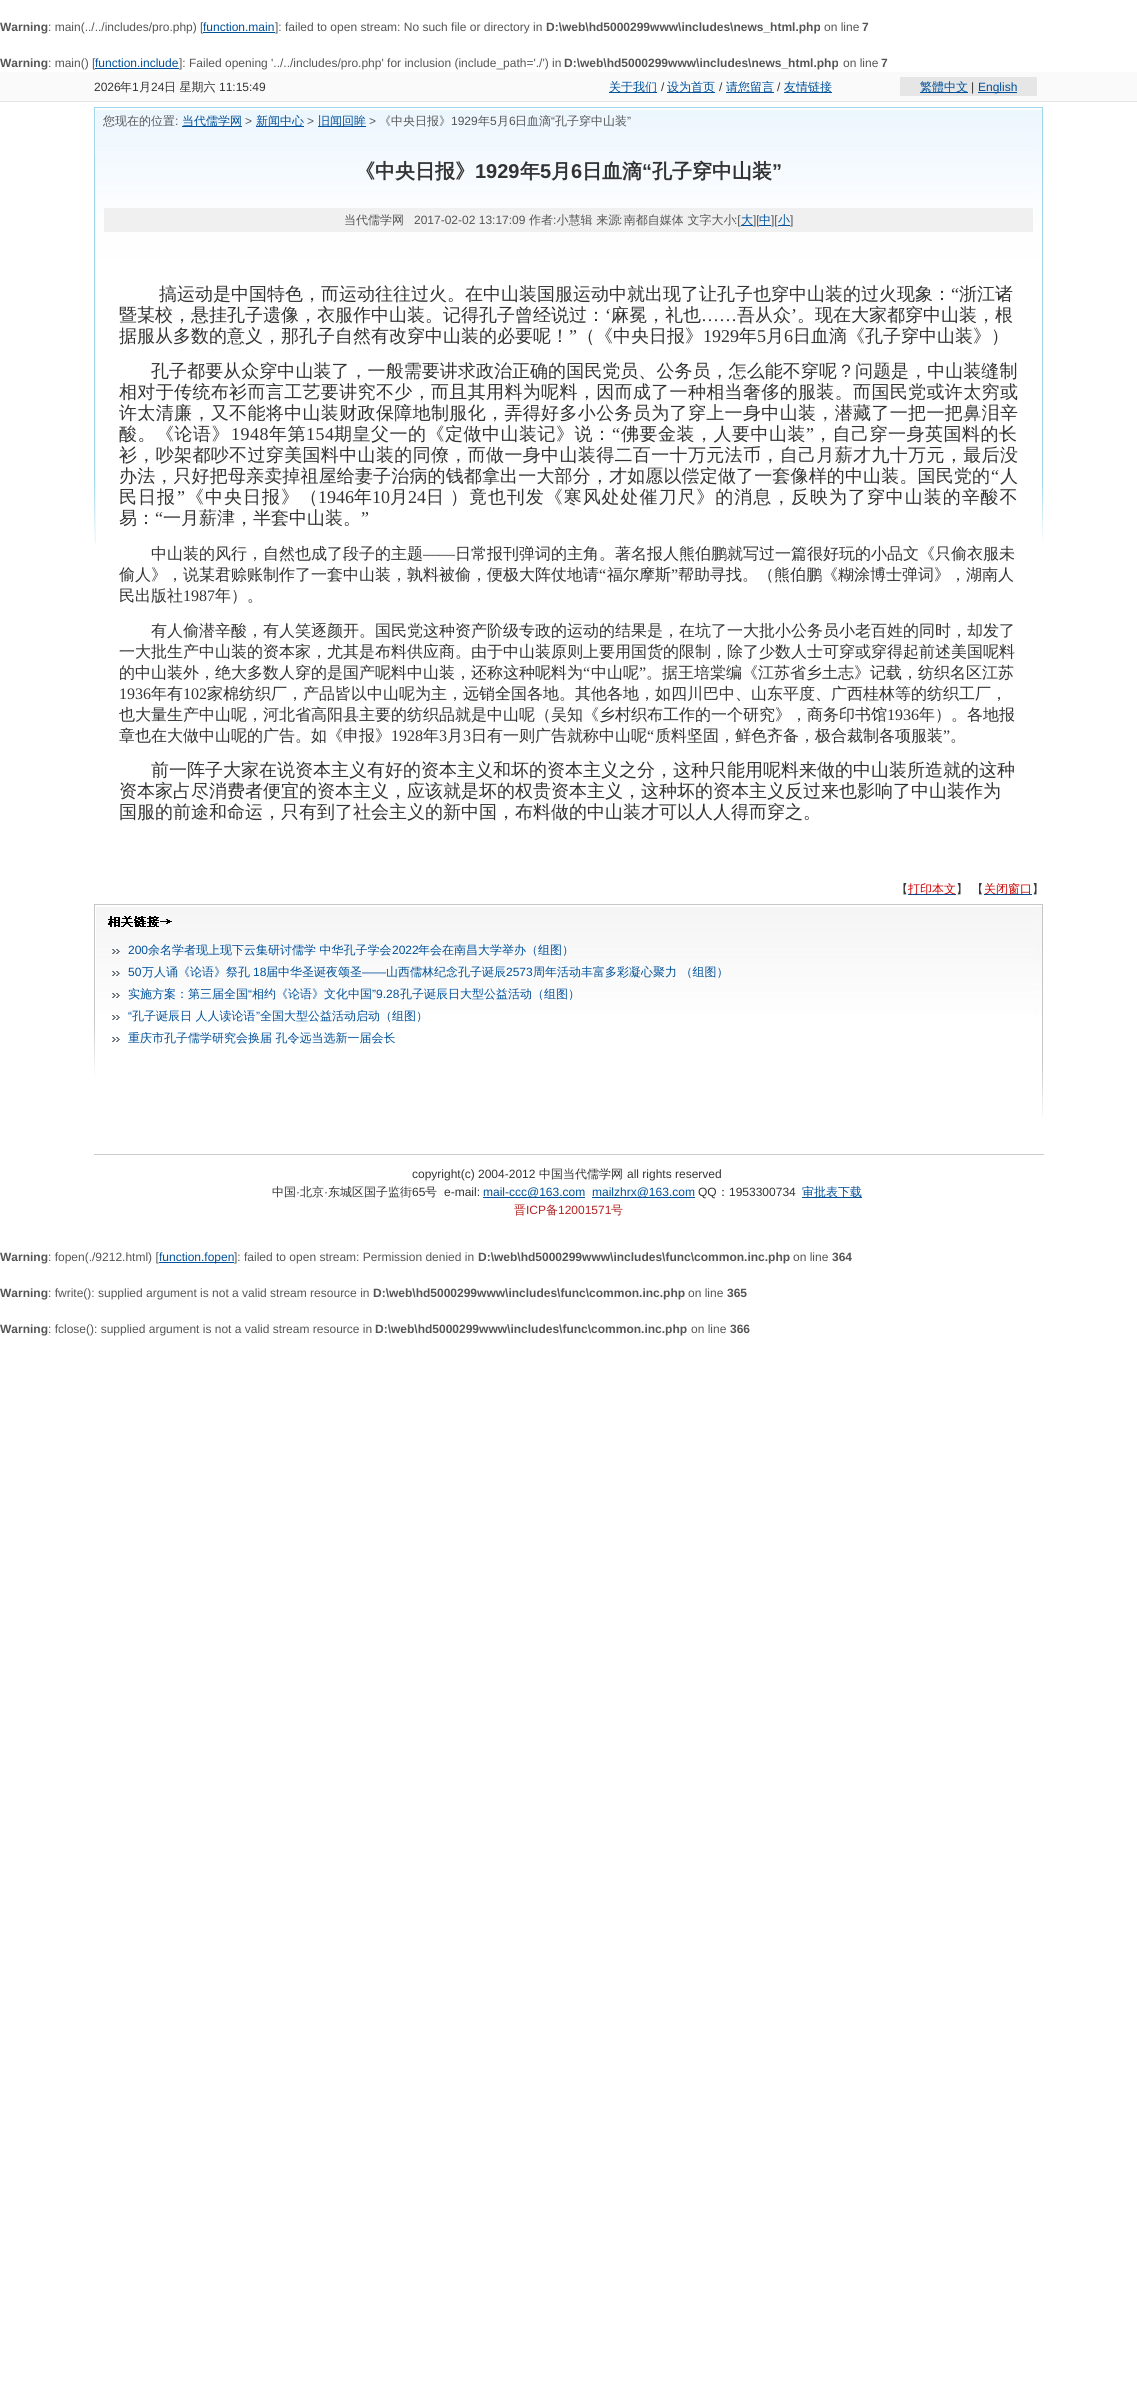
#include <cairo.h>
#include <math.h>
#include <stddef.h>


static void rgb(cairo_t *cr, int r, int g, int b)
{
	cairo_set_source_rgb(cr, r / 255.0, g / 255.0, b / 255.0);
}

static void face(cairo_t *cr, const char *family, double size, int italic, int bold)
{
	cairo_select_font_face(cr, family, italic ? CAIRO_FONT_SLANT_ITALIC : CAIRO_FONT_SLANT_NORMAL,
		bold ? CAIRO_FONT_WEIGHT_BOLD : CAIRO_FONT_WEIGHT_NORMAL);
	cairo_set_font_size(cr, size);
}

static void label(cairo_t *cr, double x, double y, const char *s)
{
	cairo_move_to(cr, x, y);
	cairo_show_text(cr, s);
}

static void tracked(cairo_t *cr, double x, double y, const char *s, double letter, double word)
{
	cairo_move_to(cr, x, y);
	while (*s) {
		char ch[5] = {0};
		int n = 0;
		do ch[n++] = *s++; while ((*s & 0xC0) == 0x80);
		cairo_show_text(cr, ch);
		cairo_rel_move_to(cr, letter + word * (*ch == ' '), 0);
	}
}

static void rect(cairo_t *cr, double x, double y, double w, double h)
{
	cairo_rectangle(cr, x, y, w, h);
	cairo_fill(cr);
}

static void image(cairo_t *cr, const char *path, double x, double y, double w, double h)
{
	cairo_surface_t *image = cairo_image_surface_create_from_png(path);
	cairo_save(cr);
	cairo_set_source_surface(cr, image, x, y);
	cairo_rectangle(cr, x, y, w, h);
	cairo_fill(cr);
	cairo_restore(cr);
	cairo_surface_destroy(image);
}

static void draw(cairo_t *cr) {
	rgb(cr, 255, 255, 255);
	cairo_paint(cr);
	face(cr, "Liberation Sans", 12, 0, 1);
	rgb(cr, 85, 85, 85);
	label(cr, 0, 31, "Warning");
	face(cr, "Liberation Sans", 12, 0, 0);
	label(cr, 48, 31, ": main(../../includes/pro.php) [");
	rgb(cr, 0, 80, 154);
	label(cr, 203, 31, "function.main");
	rect(cr, 203, 32, 72, 1);
	rgb(cr, 85, 85, 85);
	label(cr, 275, 31, "]: failed to open stream: No such file or directory in");
	face(cr, "Liberation Sans", 12, 0, 1);
	label(cr, 546, 31, "D:\\web\\hd5000299www\\includes\\news_html.php");
	face(cr, "Liberation Sans", 12, 0, 0);
	label(cr, 824, 31, "on line");
	face(cr, "Liberation Sans", 12, 0, 1);
	label(cr, 862, 31, "7");
	label(cr, 0, 67, "Warning");
	face(cr, "Liberation Sans", 12, 0, 0);
	label(cr, 48, 67, ": main() [");
	rgb(cr, 0, 80, 154);
	label(cr, 95, 67, "function.include");
	rect(cr, 95, 68, 84, 1);
	rgb(cr, 85, 85, 85);
	label(cr, 179, 67, "]: Failed opening '../../includes/pro.php' for inclusion (include_path='./') in");
	face(cr, "Liberation Sans", 12, 0, 1);
	label(cr, 564, 67, "D:\\web\\hd5000299www\\includes\\news_html.php");
	face(cr, "Liberation Sans", 12, 0, 0);
	label(cr, 843, 67, "on line");
	face(cr, "Liberation Sans", 12, 0, 1);
	label(cr, 881, 67, "7");
	rgb(cr, 250, 250, 250);
	rect(cr, 0, 72, 1137, 29);
	face(cr, "Liberation Sans", 12, 0, 0);
	rgb(cr, 51, 51, 51);
	label(cr, 94, 91, "2026");
	face(cr, "WenQuanYi Zen Hei Medium", 12, 0, 0);
	label(cr, 120, 91, "年");
	face(cr, "Liberation Sans", 12, 0, 0);
	label(cr, 132, 91, "1");
	face(cr, "WenQuanYi Zen Hei Medium", 12, 0, 0);
	label(cr, 139, 91, "月");
	face(cr, "Liberation Sans", 12, 0, 0);
	label(cr, 151, 91, "24");
	face(cr, "WenQuanYi Zen Hei Medium", 12, 0, 0);
	label(cr, 164, 91, "日 星期六");
	face(cr, "Liberation Sans", 12, 0, 0);
	label(cr, 219, 91, "11:15:49");
	rgb(cr, 0, 80, 154);
	rect(cr, 609, 92, 48, 1);
	face(cr, "WenQuanYi Zen Hei Medium", 12, 0, 0);
	label(cr, 609, 91, "关于我们");
	face(cr, "Liberation Sans", 12, 0, 0);
	rgb(cr, 51, 51, 51);
	label(cr, 661, 91, "/");
	rgb(cr, 0, 80, 154);
	rect(cr, 667, 92, 48, 1);
	face(cr, "WenQuanYi Zen Hei Medium", 12, 0, 0);
	label(cr, 667, 91, "设为首页");
	face(cr, "Liberation Sans", 12, 0, 0);
	rgb(cr, 51, 51, 51);
	label(cr, 719, 91, "/");
	rgb(cr, 0, 80, 154);
	rect(cr, 726, 92, 48, 1);
	face(cr, "WenQuanYi Zen Hei Medium", 12, 0, 0);
	label(cr, 726, 91, "请您留言");
	face(cr, "Liberation Sans", 12, 0, 0);
	rgb(cr, 51, 51, 51);
	label(cr, 777, 91, "/");
	rgb(cr, 0, 80, 154);
	rect(cr, 784, 92, 48, 1);
	face(cr, "WenQuanYi Zen Hei Medium", 12, 0, 0);
	label(cr, 784, 91, "友情链接");
	rgb(cr, 230, 230, 230);
	rect(cr, 900, 77, 137, 19);
	rgb(cr, 0, 80, 154);
	rect(cr, 920, 92, 48, 1);
	label(cr, 920, 91, "繁體中文");
	face(cr, "Liberation Sans", 12, 0, 0);
	rgb(cr, 51, 51, 51);
	label(cr, 971, 91, "|");
	rgb(cr, 0, 80, 154);
	rect(cr, 978, 92, 39, 1);
	label(cr, 978, 91, "English");
	rgb(cr, 229, 229, 229);
	rect(cr, 0, 101, 1137, 1);
	image(cr, "image0.png", 94, 107, 949, 436);
	face(cr, "WenQuanYi Zen Hei Medium", 12, 0, 0);
	rgb(cr, 85, 85, 85);
	label(cr, 103, 125, "您现在的位置");
	face(cr, "Liberation Sans", 12, 0, 0);
	label(cr, 175, 125, ":");
	rgb(cr, 0, 80, 154);
	rect(cr, 182, 126, 60, 1);
	face(cr, "WenQuanYi Zen Hei Medium", 12, 0, 0);
	label(cr, 182, 125, "当代儒学网");
	face(cr, "Liberation Sans", 12, 0, 0);
	rgb(cr, 85, 85, 85);
	label(cr, 245, 125, ">");
	rgb(cr, 0, 80, 154);
	rect(cr, 256, 126, 48, 1);
	face(cr, "WenQuanYi Zen Hei Medium", 12, 0, 0);
	label(cr, 256, 125, "新闻中心");
	face(cr, "Liberation Sans", 12, 0, 0);
	rgb(cr, 85, 85, 85);
	label(cr, 307, 125, ">");
	rgb(cr, 0, 80, 154);
	rect(cr, 318, 126, 48, 1);
	face(cr, "WenQuanYi Zen Hei Medium", 12, 0, 0);
	label(cr, 318, 125, "旧闻回眸");
	face(cr, "Liberation Sans", 12, 0, 0);
	rgb(cr, 85, 85, 85);
	label(cr, 369, 125, ">");
	face(cr, "WenQuanYi Zen Hei Medium", 12, 0, 0);
	label(cr, 379, 125, "《中央日报》");
	face(cr, "Liberation Sans", 12, 0, 0);
	label(cr, 451, 125, "1929");
	face(cr, "WenQuanYi Zen Hei Medium", 12, 0, 0);
	label(cr, 478, 125, "年");
	face(cr, "Liberation Sans", 12, 0, 0);
	label(cr, 490, 125, "5");
	face(cr, "WenQuanYi Zen Hei Medium", 12, 0, 0);
	label(cr, 497, 125, "月");
	face(cr, "Liberation Sans", 12, 0, 0);
	label(cr, 509, 125, "6");
	face(cr, "WenQuanYi Zen Hei Medium", 12, 0, 0);
	label(cr, 515, 125, "日血滴");
	face(cr, "Liberation Sans", 12, 0, 0);
	label(cr, 551, 125, "“");
	face(cr, "WenQuanYi Zen Hei Medium", 12, 0, 0);
	label(cr, 555, 125, "孔子穿中山装");
	face(cr, "Liberation Sans", 12, 0, 0);
	label(cr, 627, 125, "”");
	face(cr, "WenQuanYi Zen Hei", 20, 0, 1);
	rgb(cr, 51, 51, 51);
	label(cr, 355, 178, "《中央日报》");
	face(cr, "Liberation Sans", 20, 0, 1);
	label(cr, 475, 178, "1929");
	face(cr, "WenQuanYi Zen Hei", 20, 0, 1);
	label(cr, 520, 178, "年");
	face(cr, "Liberation Sans", 20, 0, 1);
	label(cr, 540, 178, "5");
	face(cr, "WenQuanYi Zen Hei", 20, 0, 1);
	label(cr, 551, 178, "月");
	face(cr, "Liberation Sans", 20, 0, 1);
	label(cr, 571, 178, "6");
	face(cr, "WenQuanYi Zen Hei", 20, 0, 1);
	label(cr, 582, 178, "日血滴");
	face(cr, "Liberation Sans", 20, 0, 1);
	label(cr, 642, 178, "“");
	face(cr, "WenQuanYi Zen Hei", 20, 0, 1);
	label(cr, 652, 178, "孔子穿中山装");
	face(cr, "Liberation Sans", 20, 0, 1);
	label(cr, 772, 178, "”");
	rgb(cr, 240, 240, 240);
	rect(cr, 104, 208, 929, 24);
	face(cr, "WenQuanYi Zen Hei Medium", 12, 0, 0);
	rgb(cr, 85, 85, 85);
	label(cr, 344, 224, "当代儒学网");
	face(cr, "Liberation Sans", 12, 0, 0);
	label(cr, 414, 224, "2017-02-02 13:17:09");
	face(cr, "WenQuanYi Zen Hei Medium", 12, 0, 0);
	label(cr, 529, 224, "作者 小慧辑 来源 南都自媒体 文字大小");
	face(cr, "Liberation Sans", 12, 0, 0);
	label(cr, 734, 224, ":[");
	rgb(cr, 0, 80, 154);
	rect(cr, 741, 225, 12, 1);
	face(cr, "WenQuanYi Zen Hei Medium", 12, 0, 0);
	label(cr, 741, 224, "大");
	face(cr, "Liberation Sans", 12, 0, 0);
	rgb(cr, 85, 85, 85);
	label(cr, 753, 224, "][");
	rgb(cr, 240, 240, 240);
	rect(cr, 759, 215, 1, 12);
	rgb(cr, 0, 80, 154);
	rect(cr, 759, 225, 12, 1);
	face(cr, "WenQuanYi Zen Hei Medium", 12, 0, 0);
	label(cr, 759, 224, "中");
	face(cr, "Liberation Sans", 12, 0, 0);
	rgb(cr, 85, 85, 85);
	label(cr, 771, 224, "][");
	rgb(cr, 0, 80, 154);
	rect(cr, 778, 225, 12, 1);
	face(cr, "WenQuanYi Zen Hei Medium", 12, 0, 0);
	label(cr, 778, 224, "小");
	face(cr, "Liberation Sans", 12, 0, 0);
	rgb(cr, 85, 85, 85);
	label(cr, 790, 224, "]");
	label(cr, 553, 224, ":");
	label(cr, 619, 224, ":");
	face(cr, "WenQuanYi Zen Hei Medium", 18, 0, 0);
	rgb(cr, 51, 51, 51);
	label(cr, 159, 300, "搞运动是中国特色，而运动往往过火。在中山装国服运动中就出现了让孔子也穿中山装的过火现象：");
	face(cr, "Liberation Serif", 18, 0, 0);
	label(cr, 951, 300, "“");
	face(cr, "WenQuanYi Zen Hei Medium", 18, 0, 0);
	label(cr, 959, 300, "浙江诸");
	label(cr, 119, 321, "暨某校，悬挂孔子遗像，衣服作中山装。记得孔子曾经说过：");
	face(cr, "Liberation Serif", 18, 0, 0);
	label(cr, 605, 321, "‘");
	face(cr, "WenQuanYi Zen Hei Medium", 18, 0, 0);
	label(cr, 611, 321, "麻冕，礼也");
	label(cr, 737, 321, "吾从众");
	face(cr, "Liberation Serif", 18, 0, 0);
	label(cr, 791, 321, "’");
	face(cr, "WenQuanYi Zen Hei Medium", 18, 0, 0);
	label(cr, 797, 321, "。现在大家都穿中山装，根");
	face(cr, "Liberation Serif", 18, 0, 0);
	label(cr, 701, 321, "……");
	face(cr, "WenQuanYi Zen Hei Medium", 18, 0, 0);
	label(cr, 119, 342, "据服从多数的意义，那孔子自然有改穿中山装的必要呢！");
	face(cr, "Liberation Serif", 18, 0, 0);
	label(cr, 569, 342, "”");
	face(cr, "WenQuanYi Zen Hei Medium", 18, 0, 0);
	label(cr, 577, 342, "（《中央日报》");
	face(cr, "Liberation Serif", 18, 0, 0);
	label(cr, 703, 342, "1929");
	face(cr, "WenQuanYi Zen Hei Medium", 18, 0, 0);
	label(cr, 739, 342, "年");
	face(cr, "Liberation Serif", 18, 0, 0);
	label(cr, 757, 342, "5");
	face(cr, "WenQuanYi Zen Hei Medium", 18, 0, 0);
	label(cr, 766, 342, "月");
	face(cr, "Liberation Serif", 18, 0, 0);
	label(cr, 784, 342, "6");
	face(cr, "WenQuanYi Zen Hei Medium", 18, 0, 0);
	label(cr, 793, 342, "日血滴《孔子穿中山装》）");
	tracked(cr, 151, 377, "孔子都要从众穿中山装了，一般需要讲求政治正确的国民党员、公务员，怎么能不穿呢？问题是，中山装缝制", 0.05, 0);
	tracked(cr, 119, 398, "相对于传统布衫而言工艺要讲究不少，而且其用料为呢料，因而成了一种相当奢侈的服装。而国民党或许太穷或", 0.35, 0);
	tracked(cr, 119, 419, "许太清廉，又不能将中山装财政保障地制服化，弄得好多小公务员为了穿上一身中山装，潜藏了一把一把鼻泪辛", 0.35, 0);
	tracked(cr, 119, 440, "酸。《论语》", 0.5, 0);
	face(cr, "Liberation Serif", 18, 0, 0);
	tracked(cr, 231, 440, "1948", 0.5, 0);
	face(cr, "WenQuanYi Zen Hei Medium", 18, 0, 0);
	tracked(cr, 269, 440, "年第", 0.5, 0);
	face(cr, "Liberation Serif", 18, 0, 0);
	tracked(cr, 306, 440, "154", 0.5, 0);
	face(cr, "WenQuanYi Zen Hei Medium", 18, 0, 0);
	tracked(cr, 334, 440, "期皇父一的《定做中山装记》说：", 0.5, 0);
	face(cr, "Liberation Serif", 18, 0, 0);
	tracked(cr, 612, 440, "“", 0.5, 0);
	face(cr, "WenQuanYi Zen Hei Medium", 18, 0, 0);
	tracked(cr, 621, 440, "佛要金装，人要中山装", 0.5, 0);
	face(cr, "Liberation Serif", 18, 0, 0);
	tracked(cr, 806, 440, "”", 0.5, 0);
	face(cr, "WenQuanYi Zen Hei Medium", 18, 0, 0);
	tracked(cr, 814, 440, "，自己穿一身英国料的长", 0.5, 0);
	tracked(cr, 119, 461, "衫，吵架都吵不过穿美国料中山装的同僚，而做一身中山装得二百一十万元法币，自己月薪才九十万元，最后没", 0.35, 0);
	tracked(cr, 119, 482, "办法，只好把母亲卖掉祖屋给妻子治病的钱都拿出一大部分，才如愿以偿定做了一套像样的中山装。国民党的", 0.15, 0);
	face(cr, "Liberation Serif", 18, 0, 0);
	tracked(cr, 991, 482, "“", 0.15, 0);
	face(cr, "WenQuanYi Zen Hei Medium", 18, 0, 0);
	tracked(cr, 1000, 482, "人", 0.15, 0);
	tracked(cr, 119, 503, "民日报", 1, 0);
	face(cr, "Liberation Serif", 18, 0, 0);
	tracked(cr, 177, 503, "”", 1, 0);
	face(cr, "WenQuanYi Zen Hei Medium", 18, 0, 0);
	tracked(cr, 186, 503, "《中央日报》（", 1, 0);
	face(cr, "Liberation Serif", 18, 0, 0);
	label(cr, 318, 503, "1946");
	face(cr, "WenQuanYi Zen Hei Medium", 18, 0, 0);
	label(cr, 354, 503, "年");
	face(cr, "Liberation Serif", 18, 0, 0);
	label(cr, 372, 503, "10");
	face(cr, "WenQuanYi Zen Hei Medium", 18, 0, 0);
	label(cr, 390, 503, "月");
	face(cr, "Liberation Serif", 18, 0, 0);
	label(cr, 408, 503, "24");
	face(cr, "WenQuanYi Zen Hei Medium", 18, 0, 0);
	label(cr, 426, 503, "日");
	tracked(cr, 450, 503, "）竟也刊发《寒风处处催刀尺》的消息，反映为了穿中山装的辛酸不", 0.95, 0);
	label(cr, 119, 524, "易：");
	face(cr, "Liberation Serif", 18, 0, 0);
	label(cr, 155, 524, "“");
	face(cr, "WenQuanYi Zen Hei Medium", 18, 0, 0);
	label(cr, 163, 524, "一月薪津，半套中山装。");
	face(cr, "Liberation Serif", 18, 0, 0);
	label(cr, 361, 524, "”");
	face(cr, "WenQuanYi Zen Hei Medium", 16, 0, 0);
	label(cr, 151, 559, "中山装的风行，自然也成了段子的主题");
	face(cr, "Liberation Serif", 16, 0, 0);
	label(cr, 423, 559, "——");
	face(cr, "WenQuanYi Zen Hei Medium", 16, 0, 0);
	label(cr, 455, 559, "日常报刊弹词的主角。著名报人熊伯鹏就写过一篇很好玩的小品文《只偷衣服未");
	label(cr, 119, 580, "偷人》，说某君赊账制作了一套中山装，孰料被偷，便极大阵仗地请");
	face(cr, "Liberation Serif", 16, 0, 0);
	label(cr, 599, 580, "“");
	face(cr, "WenQuanYi Zen Hei Medium", 16, 0, 0);
	label(cr, 607, 580, "福尔摩斯");
	face(cr, "Liberation Serif", 16, 0, 0);
	label(cr, 671, 580, "”");
	face(cr, "WenQuanYi Zen Hei Medium", 16, 0, 0);
	label(cr, 678, 580, "帮助寻找。（熊伯鹏《糊涂博士弹词》，湖南人");
	label(cr, 119, 601, "民出版社");
	face(cr, "Liberation Serif", 16, 0, 0);
	label(cr, 183, 601, "1987");
	face(cr, "WenQuanYi Zen Hei Medium", 16, 0, 0);
	label(cr, 215, 601, "年）。");
	label(cr, 151, 636, "有人偷潜辛酸，有人笑逐颜开。国民党这种资产阶级专政的运动的结果是，在坑了一大批小公务员小老百姓的同时，却发了");
	label(cr, 119, 657, "一大批生产中山装的资本家，尤其是布料供应商。由于中山装原则上要用国货的限制，除了少数人士可穿或穿得起前述美国呢料");
	label(cr, 119, 678, "的中山装外，绝大多数人穿的是国产呢料中山装，还称这种呢料为");
	face(cr, "Liberation Serif", 16, 0, 0);
	label(cr, 583, 678, "“");
	face(cr, "WenQuanYi Zen Hei Medium", 16, 0, 0);
	label(cr, 591, 678, "中山呢");
	face(cr, "Liberation Serif", 16, 0, 0);
	label(cr, 639, 678, "”");
	face(cr, "WenQuanYi Zen Hei Medium", 16, 0, 0);
	label(cr, 646, 678, "。据王培棠编《江苏省乡土志》记载，纺织名区江苏");
	face(cr, "Liberation Serif", 16, 0, 0);
	label(cr, 119, 699, "1936");
	face(cr, "WenQuanYi Zen Hei Medium", 16, 0, 0);
	label(cr, 151, 699, "年有");
	face(cr, "Liberation Serif", 16, 0, 0);
	label(cr, 183, 699, "102");
	face(cr, "WenQuanYi Zen Hei Medium", 16, 0, 0);
	label(cr, 207, 699, "家棉纺织厂，产品皆以中山呢为主，远销全国各地。其他各地，如四川巴中、山东平度、广西桂林等的纺织工厂，");
	label(cr, 119, 720, "也大量生产中山呢，河北省高阳县主要的纺织品就是中山呢（吴知《乡村织布工作的一个研究》，商务印书馆");
	face(cr, "Liberation Serif", 16, 0, 0);
	label(cr, 887, 720, "1936");
	face(cr, "WenQuanYi Zen Hei Medium", 16, 0, 0);
	label(cr, 919, 720, "年）。各地报");
	label(cr, 119, 741, "章也在大做中山呢的广告。如《申报》");
	face(cr, "Liberation Serif", 16, 0, 0);
	label(cr, 391, 741, "1928");
	face(cr, "WenQuanYi Zen Hei Medium", 16, 0, 0);
	label(cr, 423, 741, "年");
	face(cr, "Liberation Serif", 16, 0, 0);
	label(cr, 439, 741, "3");
	face(cr, "WenQuanYi Zen Hei Medium", 16, 0, 0);
	label(cr, 447, 741, "月");
	face(cr, "Liberation Serif", 16, 0, 0);
	label(cr, 463, 741, "3");
	face(cr, "WenQuanYi Zen Hei Medium", 16, 0, 0);
	label(cr, 471, 741, "日有一则广告就称中山呢");
	face(cr, "Liberation Serif", 16, 0, 0);
	label(cr, 647, 741, "“");
	face(cr, "WenQuanYi Zen Hei Medium", 16, 0, 0);
	label(cr, 655, 741, "质料坚固，鲜色齐备，极合裁制各项服装");
	face(cr, "Liberation Serif", 16, 0, 0);
	label(cr, 943, 741, "”");
	face(cr, "WenQuanYi Zen Hei Medium", 16, 0, 0);
	label(cr, 950, 741, "。");
	face(cr, "WenQuanYi Zen Hei Medium", 18, 0, 0);
	label(cr, 151, 776, "前一阵子大家在说资本主义有好的资本主义和坏的资本主义之分，这种只能用呢料来做的中山装所造就的这种");
	label(cr, 119, 797, "资本家占尽消费者便宜的资本主义，应该就是坏的权贵资本主义，这种坏的资本主义反过来也影响了中山装作为");
	label(cr, 119, 818, "国服的前途和命运，只有到了社会主义的新中国，布料做的中山装才可以人人得而穿之。");
	face(cr, "WenQuanYi Zen Hei Medium", 12, 0, 0);
	label(cr, 896, 893, "【");
	rgb(cr, 0, 80, 154);
	rect(cr, 908, 894, 48, 1);
	rgb(cr, 204, 0, 0);
	label(cr, 908, 893, "打印本文");
	rgb(cr, 51, 51, 51);
	label(cr, 956, 893, "】 【");
	rgb(cr, 0, 80, 154);
	rect(cr, 984, 894, 48, 1);
	rgb(cr, 204, 0, 0);
	label(cr, 984, 893, "关闭窗口");
	rgb(cr, 51, 51, 51);
	label(cr, 1032, 893, "】");
	image(cr, "image1.png", 94, 904, 949, 215);
	image(cr, "image2.png", 112, 949, 8, 5);
	face(cr, "Liberation Sans", 12, 0, 0);
	rgb(cr, 0, 80, 154);
	label(cr, 128, 954, "200");
	face(cr, "WenQuanYi Zen Hei Medium", 12, 0, 0);
	label(cr, 148, 954, "余名学者现上现下云集研讨儒学 中华孔子学会");
	face(cr, "Liberation Sans", 12, 0, 0);
	label(cr, 392, 954, "2022");
	face(cr, "WenQuanYi Zen Hei Medium", 12, 0, 0);
	label(cr, 418, 954, "年会在南昌大学举办（组图）");
	image(cr, "image3.png", 112, 971, 8, 5);
	face(cr, "Liberation Sans", 12, 0, 0);
	label(cr, 128, 976, "50");
	face(cr, "WenQuanYi Zen Hei Medium", 12, 0, 0);
	label(cr, 142, 976, "万人诵《论语》祭孔");
	face(cr, "Liberation Sans", 12, 0, 0);
	label(cr, 253, 976, "18");
	face(cr, "WenQuanYi Zen Hei Medium", 12, 0, 0);
	label(cr, 266, 976, "届中华圣诞夜颂圣");
	face(cr, "Liberation Sans", 12, 0, 0);
	label(cr, 362, 976, "——");
	face(cr, "WenQuanYi Zen Hei Medium", 12, 0, 0);
	label(cr, 386, 976, "山西儒林纪念孔子诞辰");
	face(cr, "Liberation Sans", 12, 0, 0);
	label(cr, 506, 976, "2573");
	face(cr, "WenQuanYi Zen Hei Medium", 12, 0, 0);
	label(cr, 533, 976, "周年活动丰富多彩凝心聚力 （组图）");
	image(cr, "image4.png", 112, 993, 8, 5);
	label(cr, 128, 998, "实施方案：第三届全国");
	face(cr, "Liberation Sans", 12, 0, 0);
	label(cr, 248, 998, "“");
	face(cr, "WenQuanYi Zen Hei Medium", 12, 0, 0);
	label(cr, 252, 998, "相约《论语》文化中国");
	face(cr, "Liberation Sans", 12, 0, 0);
	label(cr, 372, 998, "”9.28");
	face(cr, "WenQuanYi Zen Hei Medium", 12, 0, 0);
	label(cr, 400, 998, "孔子诞辰日大型公益活动（组图）");
	image(cr, "image5.png", 112, 1015, 8, 5);
	face(cr, "Liberation Sans", 12, 0, 0);
	label(cr, 128, 1020, "“");
	face(cr, "WenQuanYi Zen Hei Medium", 12, 0, 0);
	label(cr, 132, 1020, "孔子诞辰日 人人读论语");
	face(cr, "Liberation Sans", 12, 0, 0);
	label(cr, 256, 1020, "”");
	face(cr, "WenQuanYi Zen Hei Medium", 12, 0, 0);
	label(cr, 260, 1020, "全国大型公益活动启动（组图）");
	image(cr, "image5.png", 112, 1037, 8, 5);
	label(cr, 128, 1042, "重庆市孔子儒学研究会换届 孔令远当选新一届会长");
	rgb(cr, 204, 204, 204);
	rect(cr, 94, 1154, 950, 1);
	face(cr, "Liberation Sans", 12, 0, 0);
	rgb(cr, 51, 51, 51);
	label(cr, 412, 1178, "copyright(c) 2004-2012");
	face(cr, "WenQuanYi Zen Hei Medium", 12, 0, 0);
	label(cr, 539, 1178, "中国当代儒学网");
	face(cr, "Liberation Sans", 12, 0, 0);
	label(cr, 627, 1178, "all rights reserved");
	face(cr, "WenQuanYi Zen Hei Medium", 12, 0, 0);
	label(cr, 272, 1196, "中国");
	face(cr, "Liberation Sans", 12, 0, 0);
	label(cr, 296, 1196, "·");
	face(cr, "WenQuanYi Zen Hei Medium", 12, 0, 0);
	label(cr, 300, 1196, "北京");
	face(cr, "Liberation Sans", 12, 0, 0);
	label(cr, 324, 1196, "·");
	face(cr, "WenQuanYi Zen Hei Medium", 12, 0, 0);
	label(cr, 328, 1196, "东城区国子监街");
	face(cr, "Liberation Sans", 12, 0, 0);
	label(cr, 412, 1196, "65");
	face(cr, "WenQuanYi Zen Hei Medium", 12, 0, 0);
	label(cr, 425, 1196, "号");
	face(cr, "Liberation Sans", 12, 0, 0);
	label(cr, 444, 1196, "e-mail:");
	rgb(cr, 0, 80, 154);
	rect(cr, 483, 1197, 102, 1);
	label(cr, 483, 1196, "mail-ccc@163.com");
	rect(cr, 592, 1197, 103, 1);
	label(cr, 592, 1196, "mailzhrx@163.com");
	rgb(cr, 51, 51, 51);
	label(cr, 698, 1196, "QQ");
	face(cr, "WenQuanYi Zen Hei Medium", 12, 0, 0);
	label(cr, 717, 1196, "：");
	face(cr, "Liberation Sans", 12, 0, 0);
	label(cr, 729, 1196, "1953300734");
	rgb(cr, 0, 80, 154);
	rect(cr, 802, 1197, 60, 1);
	face(cr, "WenQuanYi Zen Hei Medium", 12, 0, 0);
	label(cr, 802, 1196, "审批表下载");
	rgb(cr, 178, 34, 34);
	label(cr, 514, 1214, "晋");
	face(cr, "Liberation Sans", 12, 0, 0);
	label(cr, 526, 1214, "ICP");
	face(cr, "WenQuanYi Zen Hei Medium", 12, 0, 0);
	label(cr, 546, 1214, "备");
	face(cr, "Liberation Sans", 12, 0, 0);
	label(cr, 558, 1214, "12001571");
	face(cr, "WenQuanYi Zen Hei Medium", 12, 0, 0);
	label(cr, 611, 1214, "号");
	face(cr, "Liberation Sans", 12, 0, 1);
	rgb(cr, 85, 85, 85);
	label(cr, 0, 1261, "Warning");
	face(cr, "Liberation Sans", 12, 0, 0);
	label(cr, 48, 1261, ": fopen(./9212.html) [");
	rgb(cr, 0, 80, 154);
	rect(cr, 159, 1262, 75, 1);
	label(cr, 159, 1261, "function.fopen");
	rgb(cr, 85, 85, 85);
	label(cr, 234, 1261, "]: failed to open stream: Permission denied in");
	face(cr, "Liberation Sans", 12, 0, 1);
	label(cr, 478, 1261, "D:\\web\\hd5000299www\\includes\\func\\common.inc.php");
	face(cr, "Liberation Sans", 12, 0, 0);
	label(cr, 793, 1261, "on line");
	face(cr, "Liberation Sans", 12, 0, 1);
	label(cr, 832, 1261, "364");
	label(cr, 0, 1297, "Warning");
	face(cr, "Liberation Sans", 12, 0, 0);
	label(cr, 48, 1297, ": fwrite(): supplied argument is not a valid stream resource in");
	face(cr, "Liberation Sans", 12, 0, 1);
	label(cr, 373, 1297, "D:\\web\\hd5000299www\\includes\\func\\common.inc.php");
	face(cr, "Liberation Sans", 12, 0, 0);
	label(cr, 688, 1297, "on line");
	face(cr, "Liberation Sans", 12, 0, 1);
	label(cr, 727, 1297, "365");
	label(cr, 0, 1333, "Warning");
	face(cr, "Liberation Sans", 12, 0, 0);
	label(cr, 48, 1333, ": fclose(): supplied argument is not a valid stream resource in");
	face(cr, "Liberation Sans", 12, 0, 1);
	label(cr, 375, 1333, "D:\\web\\hd5000299www\\includes\\func\\common.inc.php");
	face(cr, "Liberation Sans", 12, 0, 0);
	label(cr, 691, 1333, "on line");
	face(cr, "Liberation Sans", 12, 0, 1);
	label(cr, 730, 1333, "366");
}

int main(void) {
	cairo_surface_t *surface = cairo_image_surface_create(CAIRO_FORMAT_RGB24, 1137, 2404);
	cairo_t *cr = cairo_create(surface);
	cairo_font_options_t *options = cairo_font_options_create();
	cairo_font_options_set_hint_metrics(options, CAIRO_HINT_METRICS_OFF);
	cairo_font_options_set_hint_style(options, CAIRO_HINT_STYLE_NONE);
	cairo_set_font_options(cr, options);
	cairo_set_miter_limit(cr, 4);
	draw(cr);
	cairo_surface_write_to_png(surface, "render.png");
	cairo_font_options_destroy(options);
	cairo_destroy(cr);
	cairo_surface_destroy(surface);
	return 0;
}
